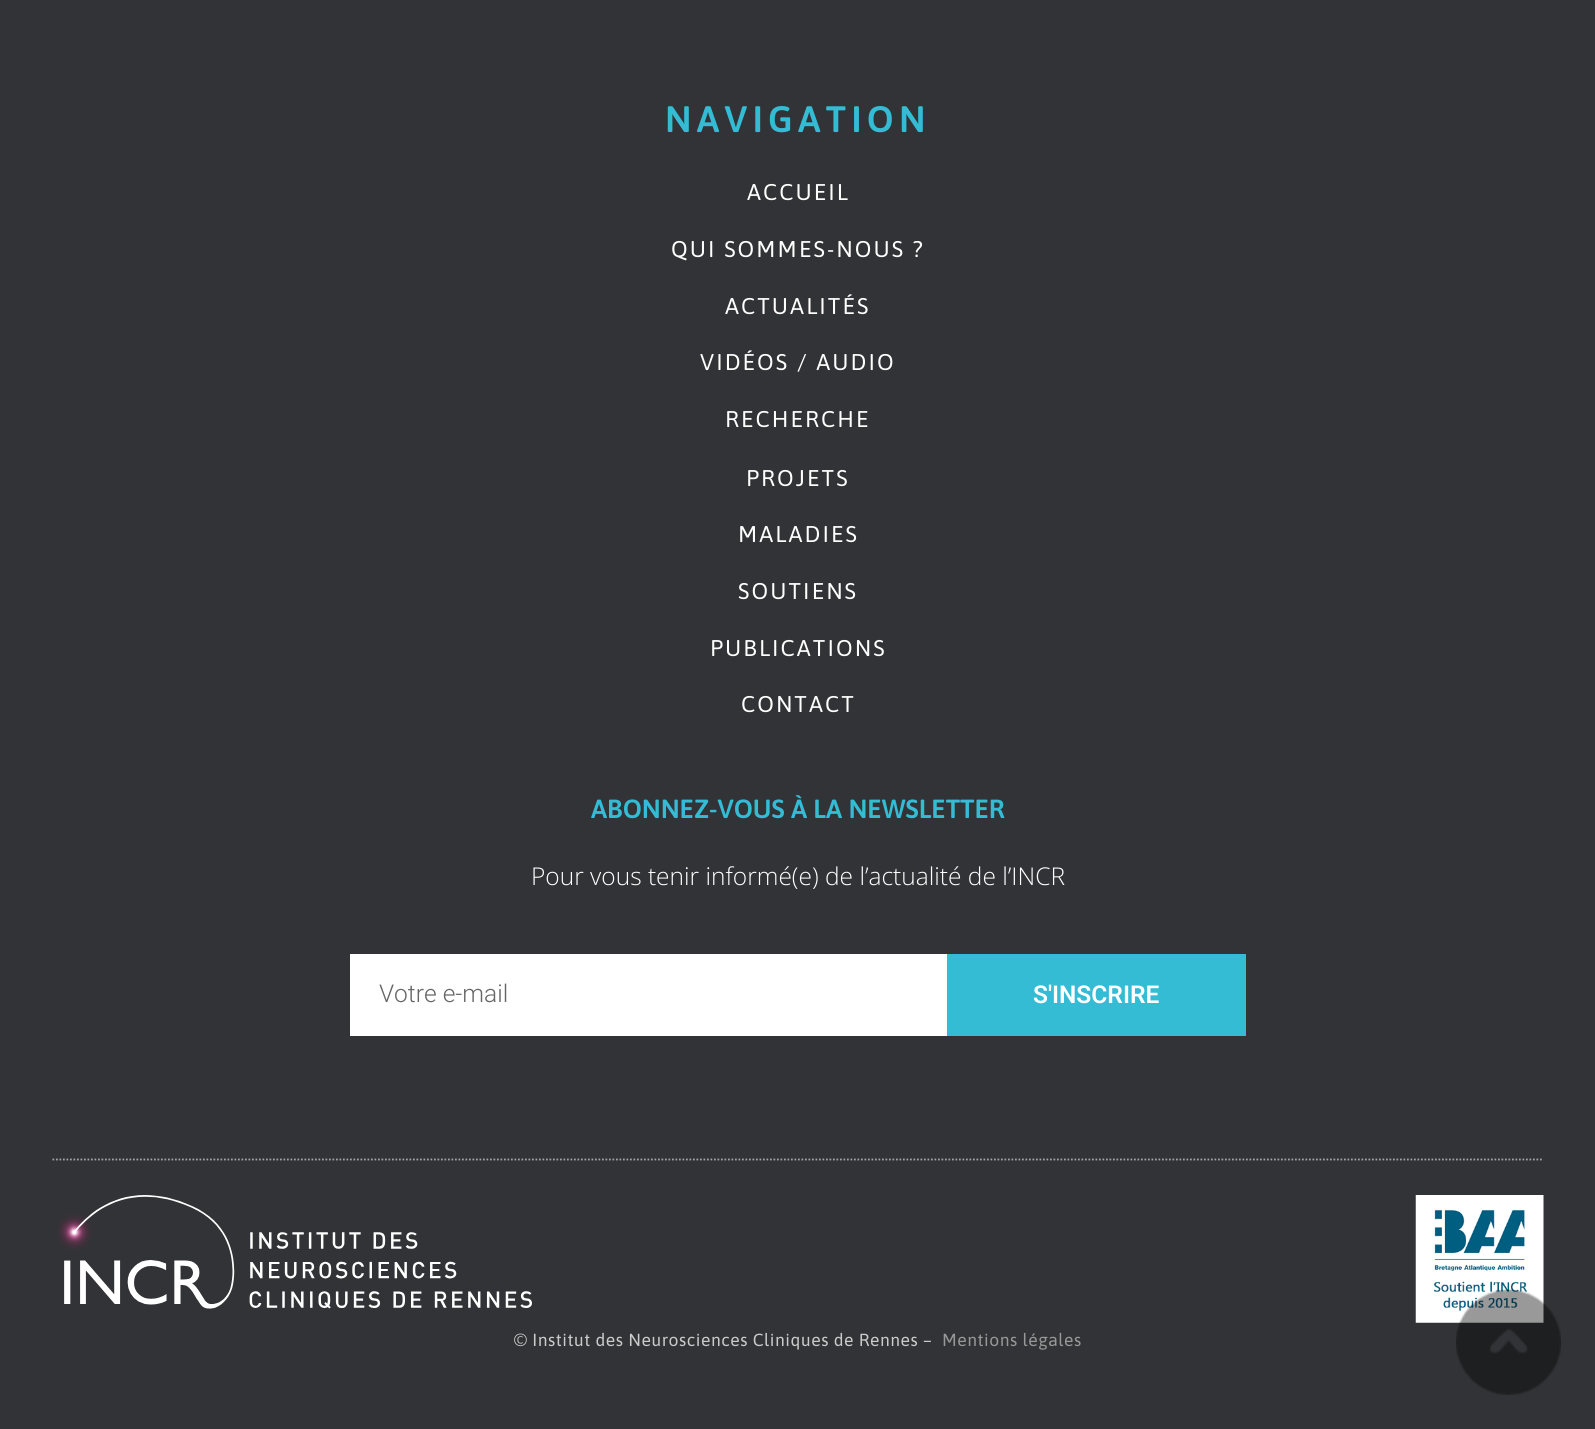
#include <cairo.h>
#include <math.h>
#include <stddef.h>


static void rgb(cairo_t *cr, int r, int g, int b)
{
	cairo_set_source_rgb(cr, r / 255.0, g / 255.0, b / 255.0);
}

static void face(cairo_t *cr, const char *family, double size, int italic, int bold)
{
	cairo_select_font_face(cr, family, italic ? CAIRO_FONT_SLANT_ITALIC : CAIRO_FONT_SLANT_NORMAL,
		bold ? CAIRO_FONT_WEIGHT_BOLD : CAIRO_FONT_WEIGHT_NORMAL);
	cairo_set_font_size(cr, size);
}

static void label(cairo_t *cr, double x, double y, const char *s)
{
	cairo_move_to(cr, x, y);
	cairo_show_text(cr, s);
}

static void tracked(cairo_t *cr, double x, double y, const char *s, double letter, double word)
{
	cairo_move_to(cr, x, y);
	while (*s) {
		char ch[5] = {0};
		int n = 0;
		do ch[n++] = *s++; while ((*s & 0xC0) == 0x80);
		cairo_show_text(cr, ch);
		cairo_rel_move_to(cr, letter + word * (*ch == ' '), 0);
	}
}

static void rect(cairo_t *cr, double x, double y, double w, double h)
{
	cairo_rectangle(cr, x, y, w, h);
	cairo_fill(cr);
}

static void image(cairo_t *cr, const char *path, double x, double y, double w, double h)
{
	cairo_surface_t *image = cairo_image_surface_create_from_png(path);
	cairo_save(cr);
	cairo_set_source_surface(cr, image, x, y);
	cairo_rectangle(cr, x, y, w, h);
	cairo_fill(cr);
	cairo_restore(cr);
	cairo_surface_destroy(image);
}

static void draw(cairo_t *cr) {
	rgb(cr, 50, 51, 54);
	cairo_paint(cr);
	face(cr, "Asap SemiBold", 36.75, 0, 0);
	rgb(cr, 52, 188, 213);
	tracked(cr, 665, 132, "NAVIGATION", 5.25, 0);
	face(cr, "Asap", 22.75, 0, 0);
	rgb(cr, 255, 255, 255);
	tracked(cr, 747, 200, "ACCUEIL", 2.1, 0);
	tracked(cr, 671, 257, "QUI SOMMES-NOUS ?", 2.1, 0);
	tracked(cr, 725, 314, "ACTUALITÉS", 2.1, 0);
	tracked(cr, 700, 370, "VIDÉOS / AUDIO", 2.1, 0);
	tracked(cr, 725, 427, "RECHERCHE", 2.1, 0);
	tracked(cr, 746, 486, "PROJETS", 2.1, 0);
	tracked(cr, 738, 542, "MALADIES", 2.1, 0);
	tracked(cr, 738, 599, "SOUTIENS", 2.1, 0);
	tracked(cr, 710, 656, "PUBLICATIONS", 2.1, 0);
	tracked(cr, 741, 712, "CONTACT", 2.1, 0);
	face(cr, "Asap SemiBold", 26.25, 0, 0);
	rgb(cr, 52, 188, 213);
	label(cr, 591, 818, "ABONNEZ-VOUS À LA NEWSLETTER");
	face(cr, "Open Sans Light", 24.5, 0, 0);
	rgb(cr, 255, 255, 255);
	label(cr, 531, 885, "Pour vous tenir informé(e) de l’actualité de l’INCR");
	rect(cr, 350, 954, 597, 82);
	face(cr, "Roboto Light", 24.5, 0, 0);
	rgb(cr, 102, 102, 102);
	label(cr, 379, 1002, "Votre e-mail");
	rgb(cr, 52, 188, 213);
	rect(cr, 947, 954, 299, 82);
	face(cr, "Roboto SemiBold", 24.5, 0, 0);
	rgb(cr, 255, 255, 255);
	label(cr, 1033, 1003, "S'INSCRIRE");
	cairo_new_path(cr);
	cairo_move_to(cr, 52.5, 1159.5);
	cairo_line_to(cr, 1543.5, 1159.5);
	rgb(cr, 165, 165, 167);
	cairo_set_line_width(cr, 1.8);
	cairo_set_dash(cr, (double[]){1.75, 1.75}, 2, 0);
	cairo_stroke(cr);
	image(cr, "image0.png", 57, 1195, 475, 114);
	image(cr, "image1.png", 1415, 1195, 129, 128);
	face(cr, "Asap", 17.5, 0, 0);
	rgb(cr, 203, 203, 203);
	tracked(cr, 514, 1346, "© Institut des Neurosciences Cliniques de Rennes –", 0.53, 0);
	rgb(cr, 152, 152, 152);
	tracked(cr, 942, 1346, "Mentions légales", 0.53, 0);
	image(cr, "image2.png", 1456, 1289, 105, 106);
}

int main(void) {
	cairo_surface_t *surface = cairo_image_surface_create(CAIRO_FORMAT_RGB24, 1595, 1429);
	cairo_t *cr = cairo_create(surface);
	cairo_font_options_t *options = cairo_font_options_create();
	cairo_font_options_set_hint_metrics(options, CAIRO_HINT_METRICS_OFF);
	cairo_font_options_set_hint_style(options, CAIRO_HINT_STYLE_NONE);
	cairo_set_font_options(cr, options);
	cairo_set_miter_limit(cr, 4);
	draw(cr);
	cairo_surface_write_to_png(surface, "render.png");
	cairo_font_options_destroy(options);
	cairo_destroy(cr);
	cairo_surface_destroy(surface);
	return 0;
}
